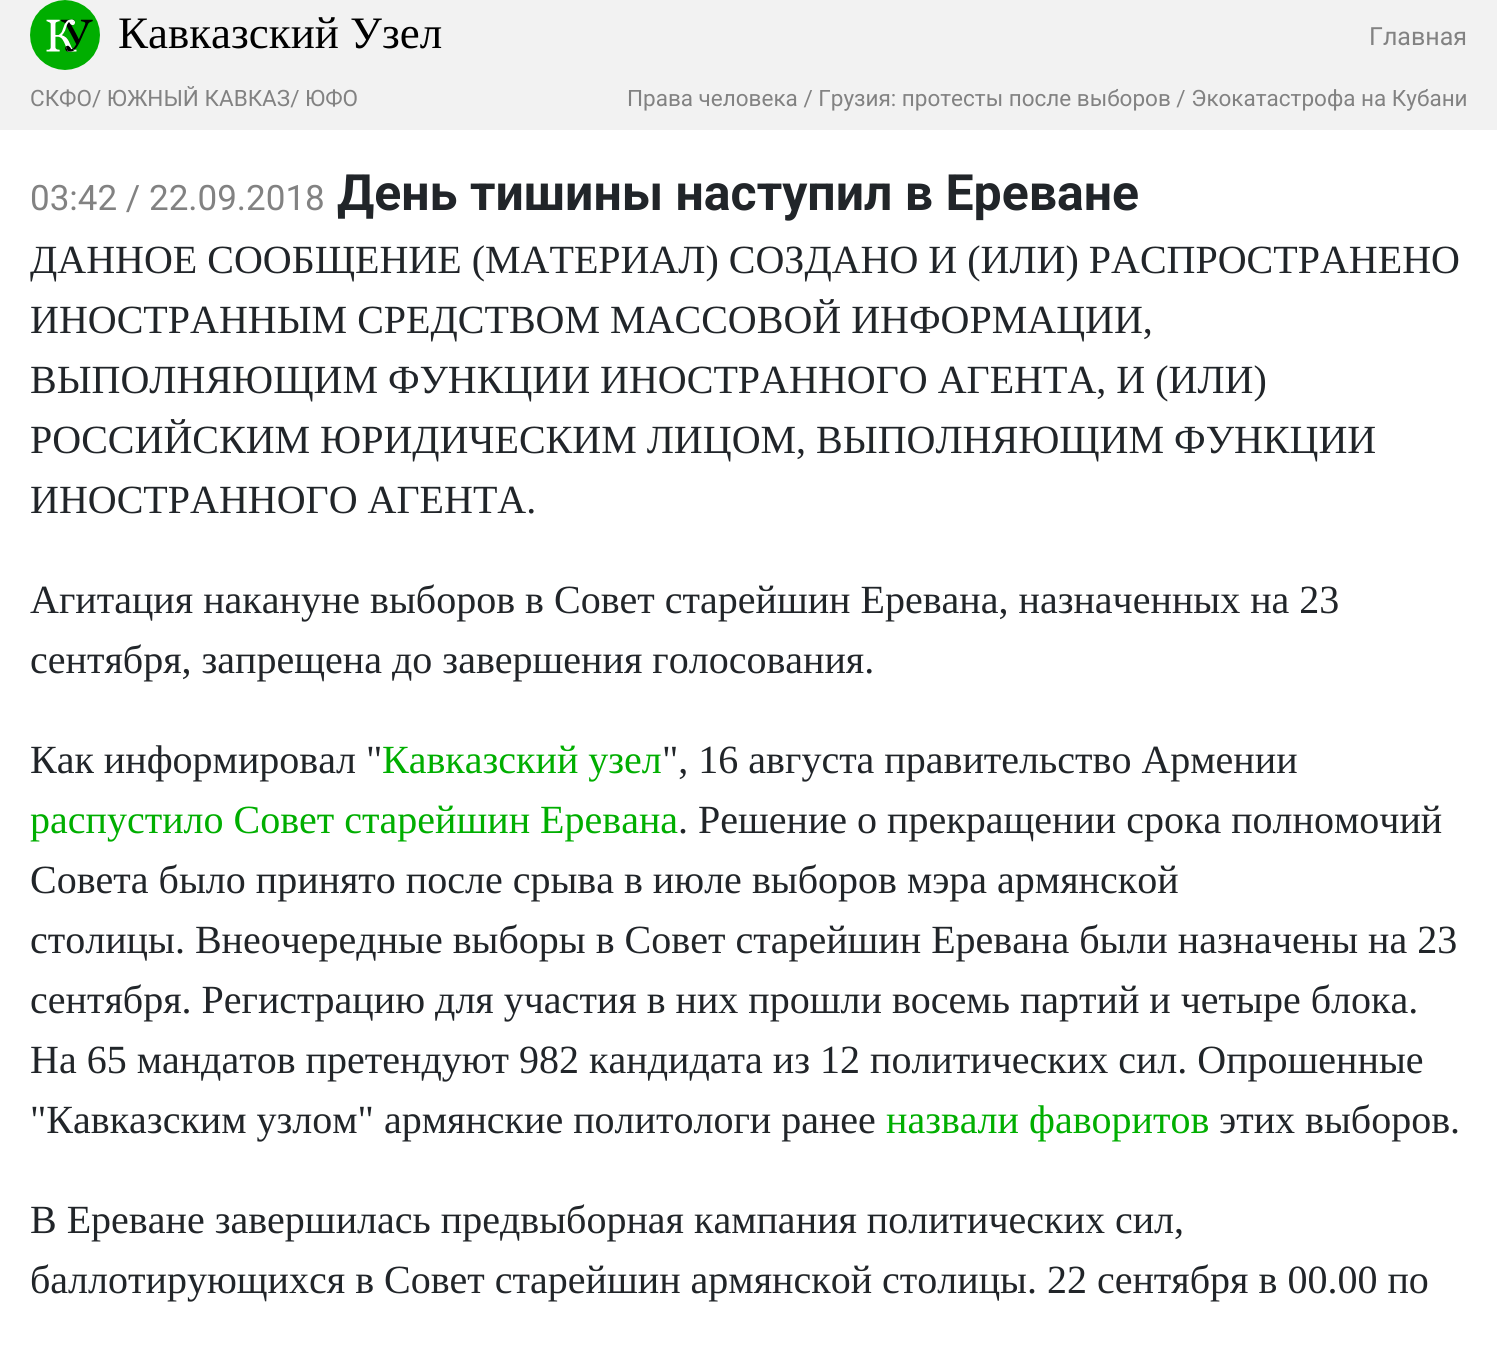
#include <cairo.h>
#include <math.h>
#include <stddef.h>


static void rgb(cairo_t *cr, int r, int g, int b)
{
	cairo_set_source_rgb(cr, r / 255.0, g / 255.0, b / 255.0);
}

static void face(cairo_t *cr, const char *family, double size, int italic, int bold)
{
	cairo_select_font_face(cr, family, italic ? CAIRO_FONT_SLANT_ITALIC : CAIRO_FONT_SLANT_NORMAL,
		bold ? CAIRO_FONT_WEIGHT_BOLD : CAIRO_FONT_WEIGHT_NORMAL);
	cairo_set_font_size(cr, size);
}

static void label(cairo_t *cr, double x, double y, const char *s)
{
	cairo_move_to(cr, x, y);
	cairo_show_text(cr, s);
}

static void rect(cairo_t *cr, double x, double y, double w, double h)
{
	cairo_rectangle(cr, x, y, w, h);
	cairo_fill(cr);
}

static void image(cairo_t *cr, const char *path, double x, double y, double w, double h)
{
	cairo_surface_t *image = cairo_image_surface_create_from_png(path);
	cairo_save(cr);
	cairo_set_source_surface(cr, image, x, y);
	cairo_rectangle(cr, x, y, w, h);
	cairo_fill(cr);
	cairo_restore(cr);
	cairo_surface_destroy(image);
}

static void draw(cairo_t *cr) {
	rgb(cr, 255, 255, 255);
	cairo_paint(cr);
	rgb(cr, 242, 242, 242);
	rect(cr, 0, 0, 1497, 130);
	image(cr, "image0.png", 30, 0, 70, 70);
	face(cr, "Liberation Serif", 45, 0, 0);
	rgb(cr, 0, 0, 0);
	label(cr, 118, 48, "Кавказский Узел");
	face(cr, "Roboto", 25, 0, 0);
	rgb(cr, 130, 130, 130);
	label(cr, 1369, 45, "Главная");
	face(cr, "Roboto", 22.5, 0, 0);
	label(cr, 30, 106, "СКФО/ ЮЖНЫЙ КАВКАЗ/ ЮФО");
	label(cr, 627, 106, "Права человека / Грузия: протесты после выборов / Экокатастрофа на Кубани");
	face(cr, "Roboto", 35, 0, 0);
	label(cr, 30, 210, "03:42 / 22.09.2018");
	face(cr, "Roboto", 50, 0, 1);
	rgb(cr, 33, 37, 41);
	label(cr, 337, 210, "День тишины наступил в Ереване");
	face(cr, "Liberation Serif", 40, 0, 0);
	label(cr, 30, 273, "ДАННОЕ СООБЩЕНИЕ (МАТЕРИАЛ) СОЗДАНО И (ИЛИ) РАСПРОСТРАНЕНО");
	label(cr, 30, 333, "ИНОСТРАННЫМ СРЕДСТВОМ МАССОВОЙ ИНФОРМАЦИИ,");
	label(cr, 30, 393, "ВЫПОЛНЯЮЩИМ ФУНКЦИИ ИНОСТРАННОГО АГЕНТА, И (ИЛИ)");
	label(cr, 30, 453, "РОССИЙСКИМ ЮРИДИЧЕСКИМ ЛИЦОМ, ВЫПОЛНЯЮЩИМ ФУНКЦИИ");
	label(cr, 30, 513, "ИНОСТРАННОГО АГЕНТА.");
	label(cr, 30, 613, "Агитация накануне выборов в Совет старейшин Еревана, назначенных на 23");
	label(cr, 30, 673, "сентября, запрещена до завершения голосования.");
	label(cr, 30, 773, "Как информировал \"");
	rgb(cr, 0, 174, 0);
	label(cr, 382, 773, "Кавказский узел");
	rgb(cr, 33, 37, 41);
	label(cr, 662, 773, "\", 16 августа правительство Армении");
	rgb(cr, 0, 174, 0);
	label(cr, 30, 833, "распустило Совет старейшин Еревана");
	rgb(cr, 33, 37, 41);
	label(cr, 678, 833, ". Решение о прекращении срока полномочий");
	label(cr, 30, 893, "Совета было принято после срыва в июле выборов мэра армянской");
	label(cr, 30, 953, "столицы. Внеочередные выборы в Совет старейшин Еревана были назначены на 23");
	label(cr, 30, 1013, "сентября. Регистрацию для участия в них прошли восемь партий и четыре блока.");
	label(cr, 30, 1073, "На 65 мандатов претендуют 982 кандидата из 12 политических сил. Опрошенные");
	label(cr, 30, 1133, "\"Кавказским узлом\" армянские политологи ранее");
	rgb(cr, 0, 174, 0);
	label(cr, 886, 1133, "назвали фаворитов");
	rgb(cr, 33, 37, 41);
	label(cr, 1219, 1133, "этих выборов.");
	label(cr, 30, 1233, "В Ереване завершилась предвыборная кампания политических сил,");
	label(cr, 30, 1293, "баллотирующихся в Совет старейшин армянской столицы. 22 сентября в 00.00 по");
}

int main(void) {
	cairo_surface_t *surface = cairo_image_surface_create(CAIRO_FORMAT_RGB24, 1497, 1345);
	cairo_t *cr = cairo_create(surface);
	cairo_font_options_t *options = cairo_font_options_create();
	cairo_font_options_set_hint_metrics(options, CAIRO_HINT_METRICS_OFF);
	cairo_font_options_set_hint_style(options, CAIRO_HINT_STYLE_NONE);
	cairo_set_font_options(cr, options);
	cairo_set_miter_limit(cr, 4);
	draw(cr);
	cairo_surface_write_to_png(surface, "render.png");
	cairo_font_options_destroy(options);
	cairo_destroy(cr);
	cairo_surface_destroy(surface);
	return 0;
}
